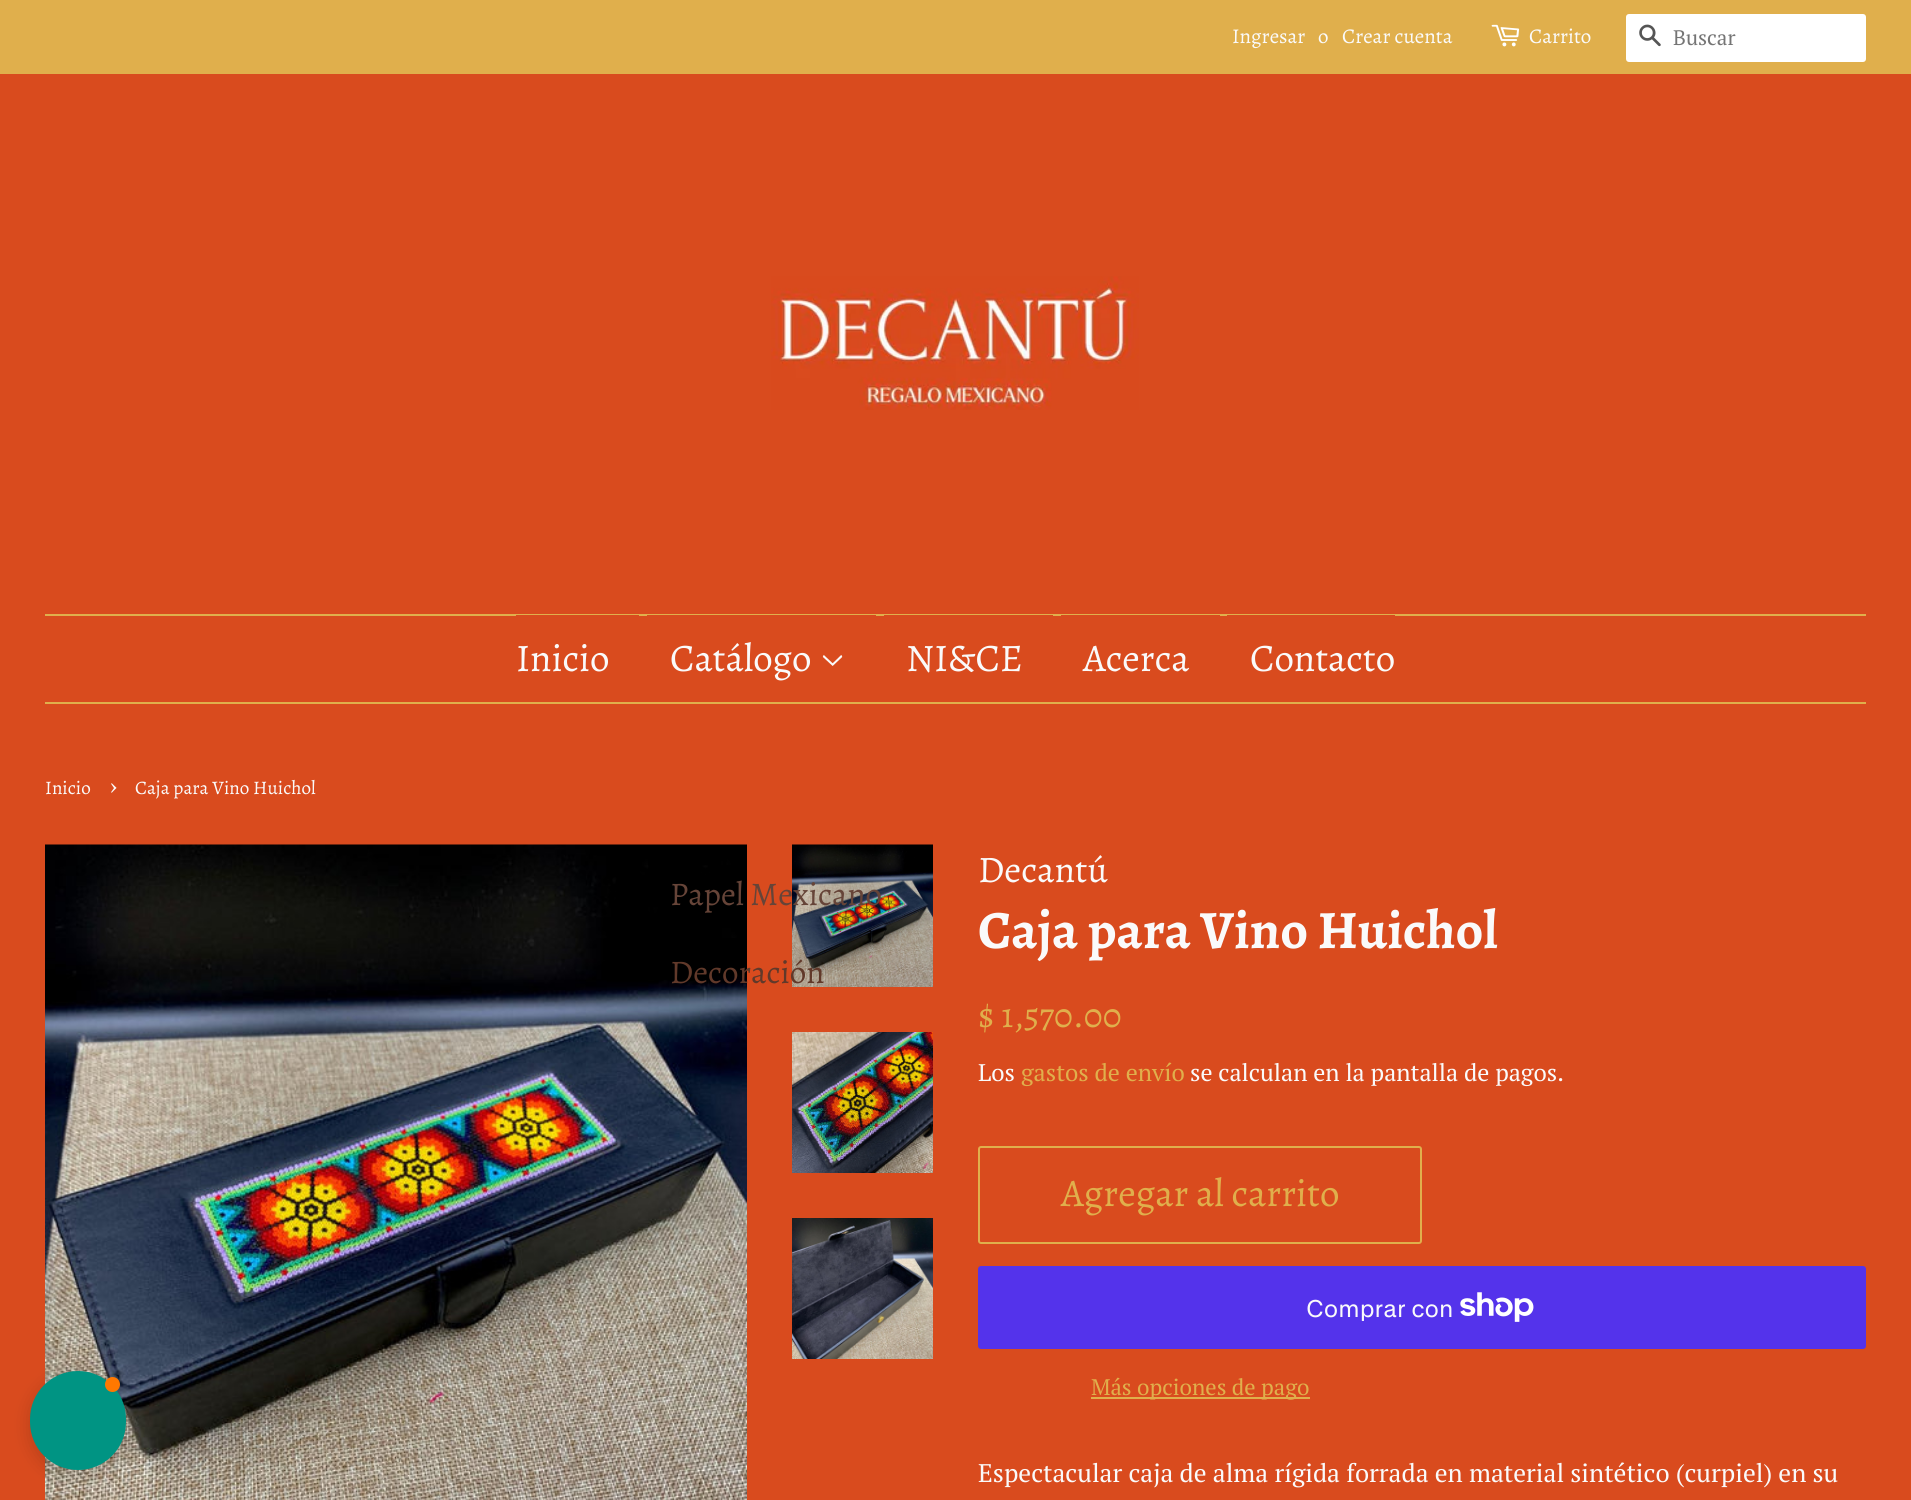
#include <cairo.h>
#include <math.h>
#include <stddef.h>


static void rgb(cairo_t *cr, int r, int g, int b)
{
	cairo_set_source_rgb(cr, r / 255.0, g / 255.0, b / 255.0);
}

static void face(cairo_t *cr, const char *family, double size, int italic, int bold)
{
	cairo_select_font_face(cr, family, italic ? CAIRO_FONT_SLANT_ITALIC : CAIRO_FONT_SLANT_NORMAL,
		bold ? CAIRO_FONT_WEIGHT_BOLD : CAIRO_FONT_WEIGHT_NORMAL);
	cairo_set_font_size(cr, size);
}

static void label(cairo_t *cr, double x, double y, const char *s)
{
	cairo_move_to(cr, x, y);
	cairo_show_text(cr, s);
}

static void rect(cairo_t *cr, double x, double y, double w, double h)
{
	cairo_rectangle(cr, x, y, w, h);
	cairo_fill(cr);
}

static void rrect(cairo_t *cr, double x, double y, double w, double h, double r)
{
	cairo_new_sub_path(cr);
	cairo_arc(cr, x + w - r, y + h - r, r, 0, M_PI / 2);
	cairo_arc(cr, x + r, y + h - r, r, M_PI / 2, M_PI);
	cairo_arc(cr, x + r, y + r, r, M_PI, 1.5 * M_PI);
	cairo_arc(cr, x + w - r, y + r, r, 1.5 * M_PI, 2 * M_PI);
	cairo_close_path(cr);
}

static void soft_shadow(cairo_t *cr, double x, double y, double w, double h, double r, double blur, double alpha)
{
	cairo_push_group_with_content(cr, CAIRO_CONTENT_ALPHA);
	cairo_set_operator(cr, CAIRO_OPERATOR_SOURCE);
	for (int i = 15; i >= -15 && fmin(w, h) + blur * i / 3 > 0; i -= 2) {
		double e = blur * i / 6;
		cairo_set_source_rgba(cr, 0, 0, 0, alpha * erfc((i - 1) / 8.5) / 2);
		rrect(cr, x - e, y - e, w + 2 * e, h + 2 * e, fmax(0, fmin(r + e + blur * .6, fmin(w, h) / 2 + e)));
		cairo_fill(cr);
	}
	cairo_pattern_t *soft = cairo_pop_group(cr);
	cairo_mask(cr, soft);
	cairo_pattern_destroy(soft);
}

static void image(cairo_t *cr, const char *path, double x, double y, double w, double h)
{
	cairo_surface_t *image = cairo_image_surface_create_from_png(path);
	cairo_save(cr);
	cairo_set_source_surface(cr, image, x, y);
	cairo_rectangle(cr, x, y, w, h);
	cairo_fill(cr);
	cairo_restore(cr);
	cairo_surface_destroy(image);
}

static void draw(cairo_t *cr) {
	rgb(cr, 217, 75, 30);
	cairo_paint(cr);
	rgb(cr, 224, 175, 76);
	rect(cr, 0, 0, 1911, 74);
	face(cr, "Alegreya", 21, 0, 0);
	rgb(cr, 250, 250, 250);
	label(cr, 1232, 43, "Ingresar");
	label(cr, 1318, 43, "o");
	label(cr, 1342, 43, "Crear cuenta");
	image(cr, "image0.png", 1491, 24, 29, 23);
	label(cr, 1529, 43, "Carrito");
	rgb(cr, 255, 255, 255);
	rrect(cr, 1626, 14, 240, 48, 3);
	cairo_fill(cr);
	image(cr, "image1.png", 1639, 24, 22, 23);
	face(cr, "PT Serif", 21, 0, 0);
	rgb(cr, 117, 117, 117);
	label(cr, 1673, 45, "Buscar");
	image(cr, "image2.png", 771, 276, 368, 134);
	rgb(cr, 224, 175, 76);
	rect(cr, 45, 614, 1821, 2);
	rect(cr, 45, 702, 1821, 2);
	rgb(cr, 217, 75, 30);
	rect(cr, 516, 615, 123, 1);
	face(cr, "Alegreya", 39, 0, 0);
	rgb(cr, 250, 250, 250);
	label(cr, 516, 671, "Inicio");
	rgb(cr, 217, 75, 30);
	rect(cr, 647, 615, 229, 1);
	rgb(cr, 250, 250, 250);
	label(cr, 670, 671, "Catálogo");
	image(cr, "image3.png", 822, 655, 21, 11);
	image(cr, "image4.png", 45, 844, 702, 656);
	image(cr, "image5.png", 792, 844, 141, 143);
	face(cr, "Alegreya", 33, 0, 0);
	rgb(cr, 102, 68, 56);
	label(cr, 670, 905, "Papel Mexicano");
	rgb(cr, 97, 57, 42);
	label(cr, 670, 983, "Decoración");
	rgb(cr, 217, 75, 30);
	rect(cr, 884, 615, 169, 1);
	face(cr, "Alegreya", 39, 0, 0);
	rgb(cr, 250, 250, 250);
	label(cr, 906, 671, "NI&CE");
	rgb(cr, 217, 75, 30);
	rect(cr, 1061, 615, 159, 1);
	rgb(cr, 250, 250, 250);
	label(cr, 1083, 671, "Acerca");
	rgb(cr, 217, 75, 30);
	rect(cr, 1227, 615, 168, 1);
	rgb(cr, 250, 250, 250);
	label(cr, 1250, 671, "Contacto");
	face(cr, "Alegreya", 19.1, 0, 0);
	label(cr, 45, 794, "Inicio");
	face(cr, "Alegreya", 27, 0, 0);
	label(cr, 110, 794, "›");
	face(cr, "Alegreya", 19.1, 0, 0);
	label(cr, 135, 794, "Caja para Vino Huichol");
	image(cr, "image6.png", 792, 1032, 141, 141);
	image(cr, "image7.png", 792, 1218, 141, 141);
	face(cr, "Alegreya", 37.5, 0, 0);
	label(cr, 978, 882, "Decantú");
	face(cr, "Alegreya", 54, 0, 1);
	label(cr, 978, 948, "Caja para Vino Huichol");
	face(cr, "Alegreya", 35.5, 0, 0);
	rgb(cr, 224, 175, 76);
	label(cr, 978, 1027, "$ 1,570.00");
	face(cr, "PT Serif", 24, 0, 0);
	rgb(cr, 250, 250, 250);
	label(cr, 978, 1081, "Los");
	rgb(cr, 224, 175, 76);
	label(cr, 1021, 1081, "gastos de envío");
	rgb(cr, 250, 250, 250);
	label(cr, 1190, 1081, "se calculan en la pantalla de pagos.");
	rrect(cr, 979, 1147, 442, 96, 2);
	rgb(cr, 224, 175, 76);
	cairo_stroke(cr);
	face(cr, "Alegreya", 39, 0, 0);
	label(cr, 1061, 1206, "Agregar al carrito");
	rgb(cr, 84, 51, 235);
	rrect(cr, 978, 1266, 888, 83, 3);
	cairo_fill(cr);
	face(cr, "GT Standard", 24, 0, 0);
	rgb(cr, 250, 250, 250);
	label(cr, 1306, 1317, "Comprar con");
	image(cr, "image8.png", 1460, 1292, 74, 30);
	rgb(cr, 224, 175, 76);
	rect(cr, 1091, 1397, 219, 2);
	face(cr, "PT Serif", 22.5, 0, 0);
	label(cr, 1091, 1395, "Más opciones de pago");
	face(cr, "PT Serif", 25.5, 0, 0);
	rgb(cr, 250, 250, 250);
	label(cr, 978, 1482, "Espectacular caja de alma rígida forrada en material sintético (curpiel) en su");
	rgb(cr, 0, 0, 0);
	soft_shadow(cr, 30, 1376, 96, 99, 48, 9, 0.15);
	rgb(cr, 0, 148, 131);
	rrect(cr, 30, 1371, 96, 99, 48);
	cairo_fill(cr);
	rgb(cr, 255, 120, 0);
	cairo_arc(cr, 112.5, 1384.5, 7.5, 0, 2 * M_PI);
	cairo_fill(cr);
}

int main(void) {
	cairo_surface_t *surface = cairo_image_surface_create(CAIRO_FORMAT_RGB24, 1911, 1500);
	cairo_t *cr = cairo_create(surface);
	cairo_font_options_t *options = cairo_font_options_create();
	cairo_font_options_set_hint_metrics(options, CAIRO_HINT_METRICS_OFF);
	cairo_font_options_set_hint_style(options, CAIRO_HINT_STYLE_NONE);
	cairo_set_font_options(cr, options);
	cairo_set_miter_limit(cr, 4);
	draw(cr);
	cairo_surface_write_to_png(surface, "render.png");
	cairo_font_options_destroy(options);
	cairo_destroy(cr);
	cairo_surface_destroy(surface);
	return 0;
}
